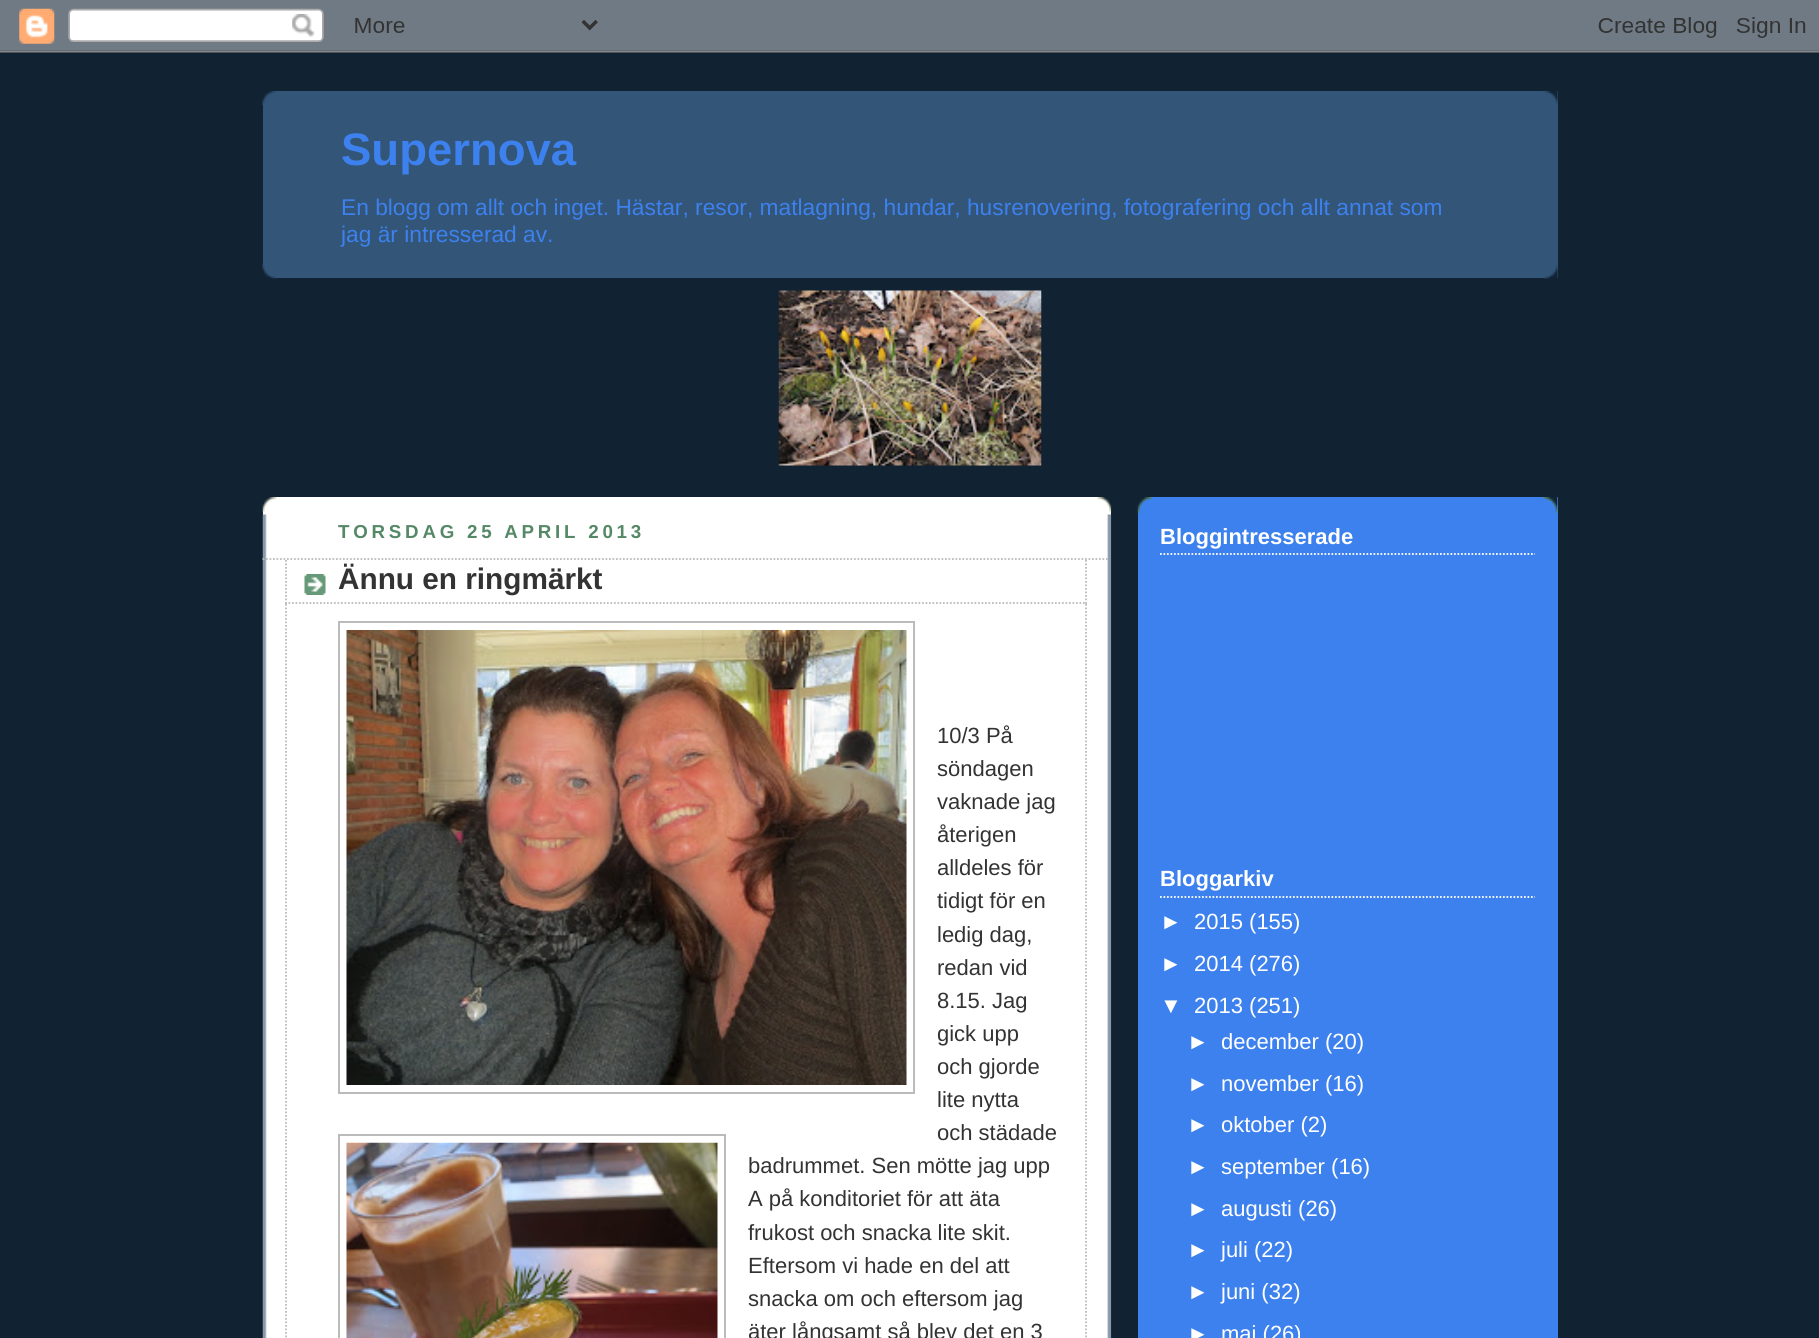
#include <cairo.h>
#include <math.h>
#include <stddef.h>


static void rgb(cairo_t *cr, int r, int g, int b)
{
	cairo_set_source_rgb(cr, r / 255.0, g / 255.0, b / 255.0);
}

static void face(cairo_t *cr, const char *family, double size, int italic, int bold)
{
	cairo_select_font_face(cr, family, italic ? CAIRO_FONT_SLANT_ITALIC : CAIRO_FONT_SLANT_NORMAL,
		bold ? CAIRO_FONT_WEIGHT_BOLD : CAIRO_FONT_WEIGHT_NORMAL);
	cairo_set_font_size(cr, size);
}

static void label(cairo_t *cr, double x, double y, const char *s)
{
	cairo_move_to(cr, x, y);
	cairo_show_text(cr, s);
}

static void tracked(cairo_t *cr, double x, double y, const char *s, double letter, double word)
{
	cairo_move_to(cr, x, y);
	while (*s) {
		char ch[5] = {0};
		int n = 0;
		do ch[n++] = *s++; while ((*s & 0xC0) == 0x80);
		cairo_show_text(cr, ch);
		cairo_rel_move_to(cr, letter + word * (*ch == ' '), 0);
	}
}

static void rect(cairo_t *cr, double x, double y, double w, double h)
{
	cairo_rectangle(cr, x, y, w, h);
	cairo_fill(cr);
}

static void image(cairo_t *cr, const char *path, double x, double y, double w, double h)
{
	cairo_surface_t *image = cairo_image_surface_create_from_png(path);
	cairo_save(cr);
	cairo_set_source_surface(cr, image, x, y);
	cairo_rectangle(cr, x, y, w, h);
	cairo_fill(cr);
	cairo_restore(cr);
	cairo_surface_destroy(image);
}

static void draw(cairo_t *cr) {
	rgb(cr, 17, 34, 51);
	cairo_paint(cr);
	image(cr, "image0.png", 0, 0, 1819, 53);
	rgb(cr, 51, 85, 119);
	rect(cr, 263, 91, 1295, 187);
	image(cr, "image1.png", 262, 91, 1296, 14);
	image(cr, "image2.png", 262, 264, 1296, 15);
	face(cr, "Liberation Sans", 45.5, 0, 1);
	rgb(cr, 61, 129, 238);
	label(cr, 341, 165, "Supernova");
	face(cr, "Liberation Sans", 22.75, 0, 0);
	label(cr, 341, 215, "En blogg om allt och inget. Hästar, resor, matlagning, hundar, husrenovering, fotografering och allt annat som");
	label(cr, 341, 242, "jag är intresserad av.");
	image(cr, "image3.png", 778, 290, 264, 176);
	rgb(cr, 255, 255, 255);
	rect(cr, 263, 497, 848, 841);
	image(cr, "image4.png", 262, 497, 850, 16);
	image(cr, "image5.png", 262, 514, 850, 824);
	face(cr, "Liberation Sans", 18.75, 0, 1);
	rgb(cr, 85, 136, 102);
	tracked(cr, 338, 538, "TORSDAG 25 APRIL 2013", 3.75, 0);
	cairo_new_path(cr);
	cairo_move_to(cr, 262.5, 559);
	cairo_line_to(cr, 1109.5, 559);
	rgb(cr, 187, 187, 187);
	cairo_set_line_width(cr, 1.8);
	cairo_set_dash(cr, (double[]){1.75, 1.75}, 2, 0);
	cairo_stroke(cr);
	image(cr, "image6.png", 304, 574, 22, 21);
	cairo_new_path(cr);
	cairo_move_to(cr, 1086, 560);
	cairo_line_to(cr, 1086, 604);
	cairo_stroke(cr);
	cairo_new_path(cr);
	cairo_move_to(cr, 285, 603);
	cairo_line_to(cr, 1087, 603);
	cairo_stroke(cr);
	cairo_new_path(cr);
	cairo_move_to(cr, 286, 560);
	cairo_line_to(cr, 286, 604);
	cairo_stroke(cr);
	face(cr, "Liberation Sans", 29.75, 0, 1);
	rgb(cr, 51, 51, 51);
	label(cr, 338, 589, "Ännu en ringmärkt");
	cairo_new_path(cr);
	cairo_move_to(cr, 1086, 604);
	cairo_line_to(cr, 1086, 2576);
	rgb(cr, 187, 187, 187);
	cairo_stroke(cr);
	cairo_new_path(cr);
	cairo_move_to(cr, 286, 604);
	cairo_line_to(cr, 286, 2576);
	cairo_stroke(cr);
	cairo_rectangle(cr, 339, 622, 575, 471);
	cairo_set_line_width(cr, 2);
	cairo_set_dash(cr, NULL, 0, 0);
	cairo_stroke(cr);
	image(cr, "image7.png", 346, 630, 561, 455);
	face(cr, "Liberation Sans", 22, 0, 0);
	rgb(cr, 51, 51, 51);
	label(cr, 937, 743, "10/3 På");
	label(cr, 937, 776, "söndagen");
	label(cr, 937, 809, "vaknade jag");
	label(cr, 937, 842, "återigen");
	label(cr, 937, 875, "alldeles för");
	label(cr, 937, 908, "tidigt för en");
	label(cr, 937, 942, "ledig dag,");
	label(cr, 937, 975, "redan vid");
	label(cr, 937, 1008, "8.15. Jag");
	label(cr, 937, 1041, "gick upp");
	label(cr, 937, 1074, "och gjorde");
	label(cr, 937, 1107, "lite nytta");
	cairo_rectangle(cr, 339, 1135, 386, 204);
	rgb(cr, 187, 187, 187);
	cairo_stroke(cr);
	image(cr, "image8.png", 346, 1142, 372, 196);
	rgb(cr, 51, 51, 51);
	label(cr, 937, 1140, "och städade");
	label(cr, 748, 1173, "badrummet. Sen mötte jag upp");
	label(cr, 748, 1206, "A på konditoriet för att äta");
	label(cr, 748, 1240, "frukost och snacka lite skit.");
	label(cr, 748, 1273, "Eftersom vi hade en del att");
	label(cr, 748, 1306, "snacka om och eftersom jag");
	label(cr, 748, 1339, "äter långsamt så blev det en 3");
	rgb(cr, 61, 129, 238);
	rect(cr, 1138, 497, 420, 841);
	image(cr, "image9.png", 1137, 497, 421, 16);
	cairo_new_path(cr);
	cairo_move_to(cr, 1160, 554);
	cairo_line_to(cr, 1535, 554);
	rgb(cr, 255, 255, 255);
	cairo_set_line_width(cr, 1.8);
	cairo_set_dash(cr, (double[]){1.75, 1.75}, 2, 0);
	cairo_stroke(cr);
	face(cr, "Liberation Sans", 22, 0, 1);
	label(cr, 1160, 544, "Bloggintresserade");
	cairo_new_path(cr);
	cairo_move_to(cr, 1160, 897);
	cairo_line_to(cr, 1535, 897);
	cairo_stroke(cr);
	label(cr, 1160, 886, "Bloggarkiv");
	face(cr, "Liberation Sans", 22, 0, 0);
	label(cr, 1160, 929, "►");
	label(cr, 1194, 929, "2015 (155)");
	label(cr, 1160, 971, "►");
	label(cr, 1194, 971, "2014 (276)");
	label(cr, 1160, 1013, "▼");
	label(cr, 1194, 1013, "2013 (251)");
	label(cr, 1187, 1049, "►");
	label(cr, 1221, 1049, "december (20)");
	label(cr, 1187, 1091, "►");
	label(cr, 1221, 1091, "november (16)");
	label(cr, 1187, 1132, "►");
	label(cr, 1221, 1132, "oktober (2)");
	label(cr, 1187, 1174, "►");
	label(cr, 1221, 1174, "september (16)");
	label(cr, 1187, 1216, "►");
	label(cr, 1221, 1216, "augusti (26)");
	label(cr, 1187, 1257, "►");
	label(cr, 1221, 1257, "juli (22)");
	label(cr, 1187, 1299, "►");
	label(cr, 1221, 1299, "juni (32)");
	label(cr, 1187, 1341, "►");
	label(cr, 1221, 1341, "maj (26)");
}

int main(void) {
	cairo_surface_t *surface = cairo_image_surface_create(CAIRO_FORMAT_RGB24, 1819, 1338);
	cairo_t *cr = cairo_create(surface);
	cairo_font_options_t *options = cairo_font_options_create();
	cairo_font_options_set_hint_metrics(options, CAIRO_HINT_METRICS_OFF);
	cairo_font_options_set_hint_style(options, CAIRO_HINT_STYLE_NONE);
	cairo_set_font_options(cr, options);
	cairo_set_miter_limit(cr, 4);
	draw(cr);
	cairo_surface_write_to_png(surface, "render.png");
	cairo_font_options_destroy(options);
	cairo_destroy(cr);
	cairo_surface_destroy(surface);
	return 0;
}
